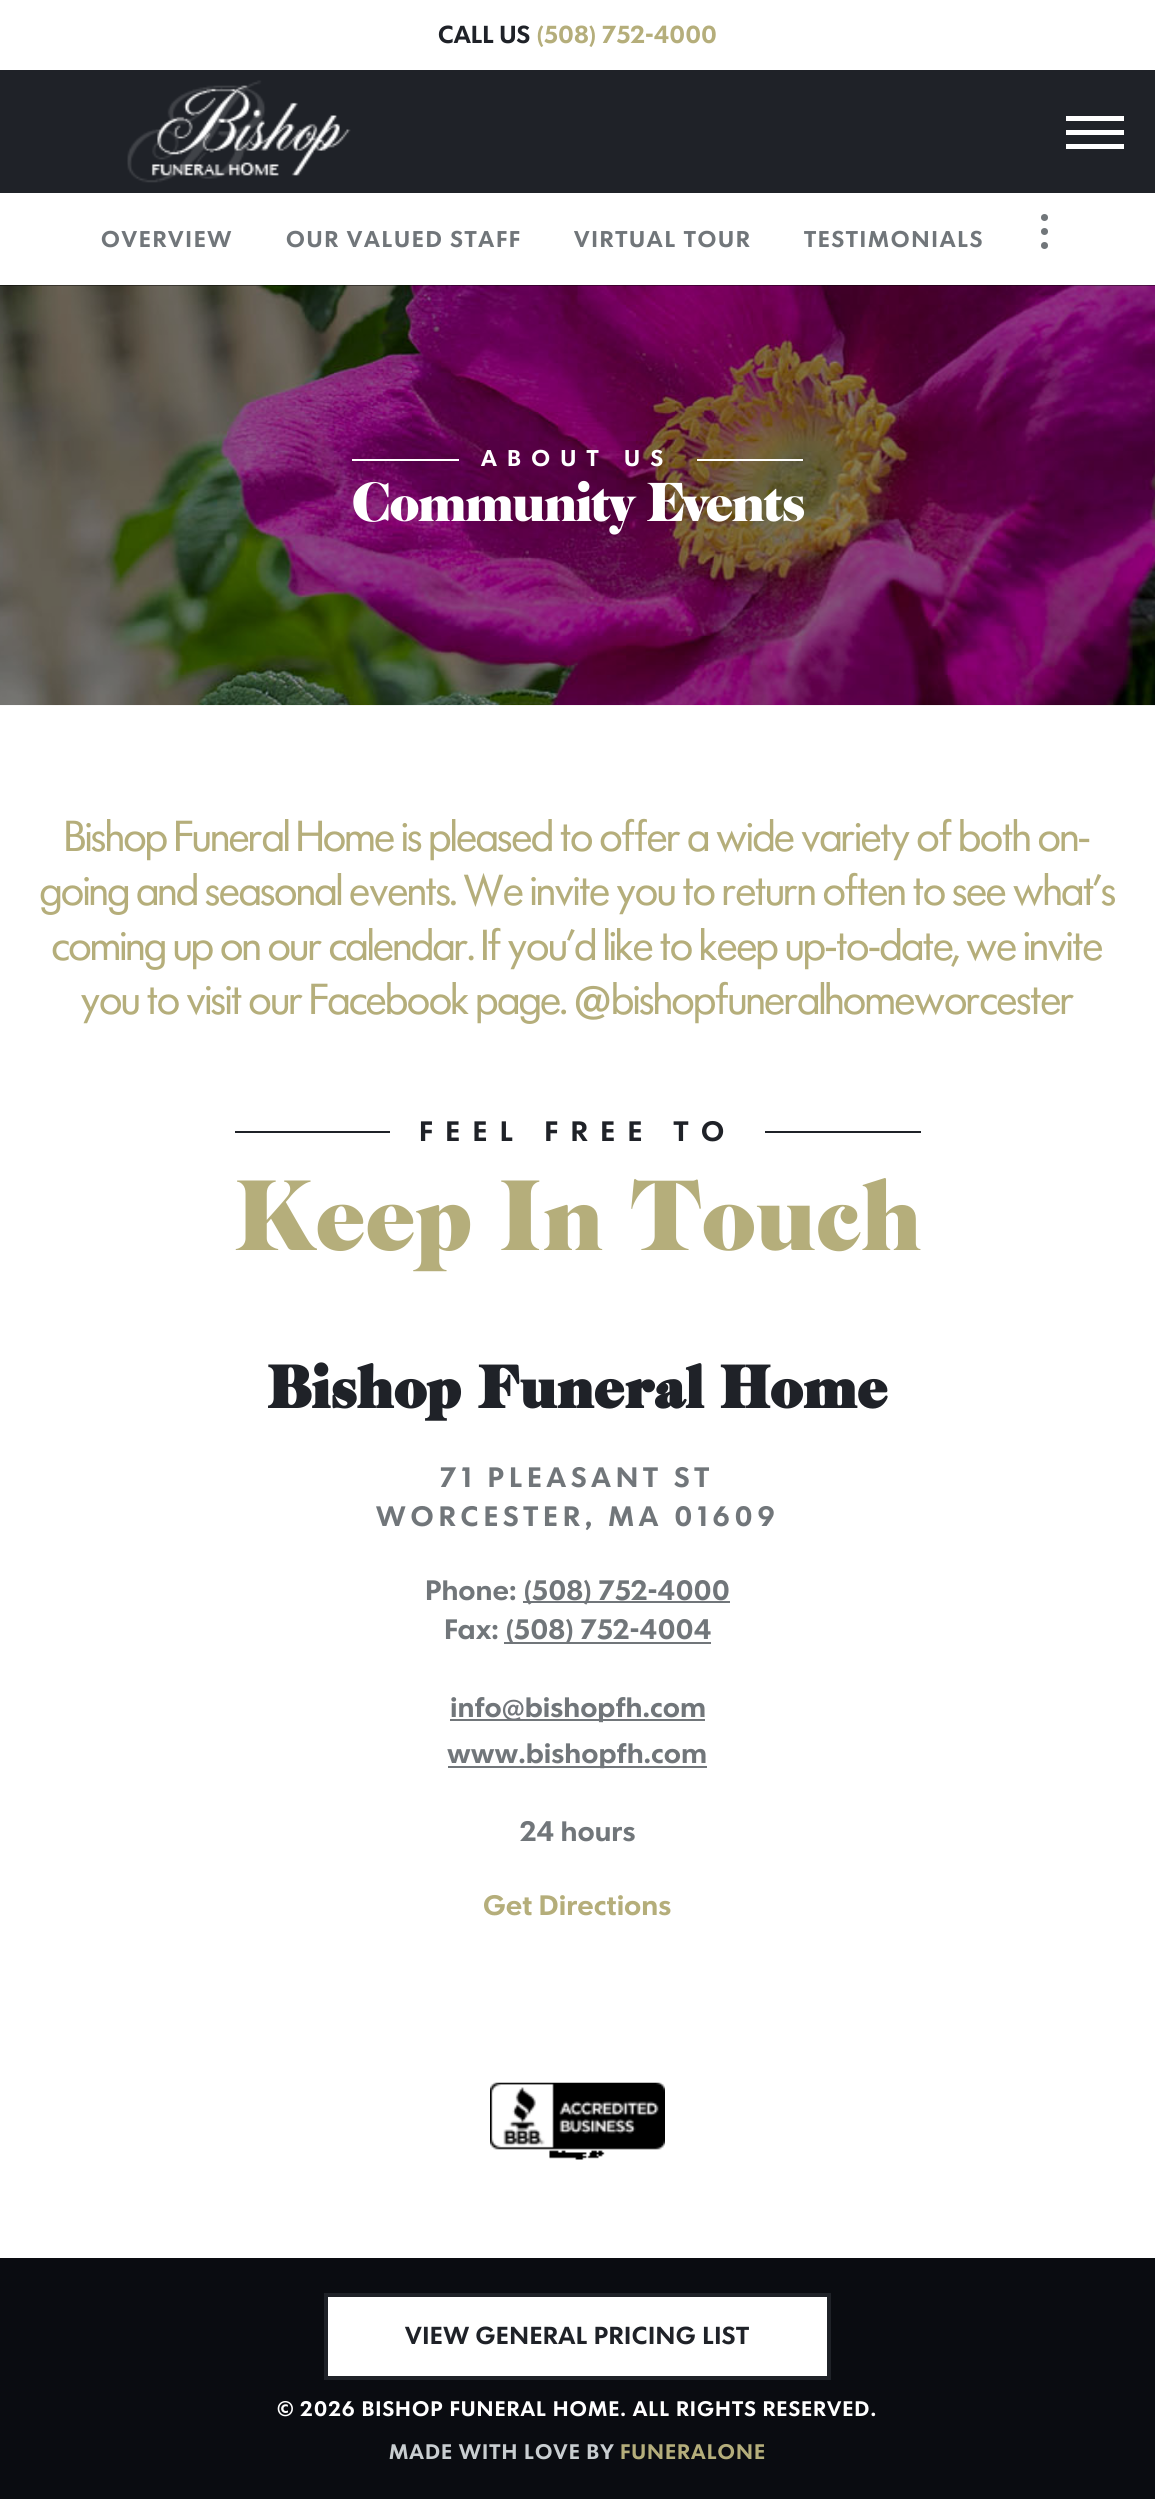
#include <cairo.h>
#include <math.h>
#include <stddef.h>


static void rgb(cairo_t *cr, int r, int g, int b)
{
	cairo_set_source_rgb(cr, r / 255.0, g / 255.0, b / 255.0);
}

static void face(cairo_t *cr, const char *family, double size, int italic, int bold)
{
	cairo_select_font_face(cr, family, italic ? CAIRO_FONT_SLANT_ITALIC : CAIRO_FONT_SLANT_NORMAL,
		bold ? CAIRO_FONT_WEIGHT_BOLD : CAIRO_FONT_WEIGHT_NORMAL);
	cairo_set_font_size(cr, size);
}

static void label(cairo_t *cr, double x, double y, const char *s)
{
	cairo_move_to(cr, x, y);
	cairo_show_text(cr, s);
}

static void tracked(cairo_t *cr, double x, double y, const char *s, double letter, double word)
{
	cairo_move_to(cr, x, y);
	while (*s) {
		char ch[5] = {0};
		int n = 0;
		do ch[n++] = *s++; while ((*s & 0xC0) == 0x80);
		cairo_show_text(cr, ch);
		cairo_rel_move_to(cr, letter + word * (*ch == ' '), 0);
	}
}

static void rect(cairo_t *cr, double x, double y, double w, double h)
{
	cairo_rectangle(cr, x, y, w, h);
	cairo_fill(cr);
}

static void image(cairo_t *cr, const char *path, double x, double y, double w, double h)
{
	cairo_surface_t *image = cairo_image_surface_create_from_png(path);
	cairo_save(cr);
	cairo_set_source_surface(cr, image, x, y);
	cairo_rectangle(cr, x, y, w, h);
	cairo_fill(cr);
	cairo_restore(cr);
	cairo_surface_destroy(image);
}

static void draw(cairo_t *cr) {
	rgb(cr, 255, 255, 255);
	cairo_paint(cr);
	face(cr, "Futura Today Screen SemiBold", 24.5, 0, 0);
	rgb(cr, 31, 34, 40);
	label(cr, 438, 43, "CALL US");
	rgb(cr, 181, 174, 123);
	label(cr, 536, 43, "(508) 752-4000");
	rgb(cr, 31, 34, 40);
	rect(cr, 0, 70, 1155, 123);
	image(cr, "image0.png", 127, 80, 224, 103);
	rgb(cr, 255, 255, 255);
	rect(cr, 1066, 116, 58, 5);
	rect(cr, 1066, 130, 58, 5);
	rect(cr, 1066, 144, 58, 5);
	face(cr, "Futura Today Screen SemiBold", 22.75, 0, 0);
	rgb(cr, 113, 118, 122);
	tracked(cr, 101, 247, "OVERVIEW", 1.75, 0);
	tracked(cr, 286, 247, "OUR VALUED STAFF", 1.75, 0);
	tracked(cr, 574, 247, "VIRTUAL TOUR", 1.75, 0);
	tracked(cr, 804, 247, "TESTIMONIALS", 1.75, 0);
	cairo_new_path(cr);
	cairo_arc(cr, 1044.5, 217.5, 3.5, 0, 2 * M_PI);
	cairo_fill(cr);
	cairo_arc(cr, 1044.5, 231.5, 3.5, 0, 2 * M_PI);
	cairo_fill(cr);
	cairo_arc(cr, 1044.5, 245.5, 3.5, 0, 2 * M_PI);
	cairo_fill(cr);
	rgb(cr, 0, 0, 0);
	rect(cr, 0, 285, 1155, 420);
	image(cr, "image1.png", 0, 285, 1155, 421);
	rgb(cr, 255, 255, 255);
	rect(cr, 352, 459, 107, 2);
	tracked(cr, 481, 466, "ABOUT US", 10.25, 0);
	rect(cr, 697, 459, 106, 2);
	face(cr, "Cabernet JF", 57.75, 0, 0);
	tracked(cr, 352, 521, "Community Events", -2.25, 0);
	face(cr, "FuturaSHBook", 45.5, 0, 0);
	rgb(cr, 181, 174, 123);
	label(cr, 65, 851, "Bishop Funeral Home is pleased to offer a wide variety of both on-");
	label(cr, 40, 905, "going and seasonal events. We invite you to return often to see what’s");
	label(cr, 52, 960, "coming up on our calendar. If you’d like to keep up-to-date, we invite");
	label(cr, 81, 1014, "you to visit our Facebook page.");
	face(cr, "Futura Today Screen SemiBold", 45.5, 0, 0);
	label(cr, 574, 1014, "@");
	face(cr, "FuturaSHBook", 45.5, 0, 0);
	label(cr, 612, 1014, "bishopfuneralhomeworcester");
	rgb(cr, 31, 34, 40);
	rect(cr, 235, 1131, 155, 2);
	face(cr, "Futura Today Screen SemiBold", 28, 0, 0);
	tracked(cr, 419, 1141, "FEEL FREE TO", 12.6, 0);
	rect(cr, 765, 1131, 156, 2);
	face(cr, "Cabernet JF", 105, 0, 0);
	rgb(cr, 181, 174, 123);
	tracked(cr, 234, 1250, "Keep In Touch", -1, 0);
	face(cr, "Cabernet JF", 63, 0, 1);
	rgb(cr, 31, 34, 40);
	label(cr, 267, 1408, "Bishop Funeral Home");
	face(cr, "Futura Today Screen SemiBold", 28, 0, 0);
	rgb(cr, 113, 118, 122);
	tracked(cr, 440, 1487, "71 PLEASANT ST", 4.9, 0);
	tracked(cr, 376, 1526, "WORCESTER, MA 01609", 4.9, 0);
	label(cr, 425, 1600, "Phone:");
	rect(cr, 523, 1601, 207, 2);
	label(cr, 523, 1600, "(508) 752-4000");
	label(cr, 444, 1639, "Fax:");
	rect(cr, 504, 1642, 207, 2);
	label(cr, 505, 1639, "(508) 752-4004");
	rect(cr, 450, 1719, 255, 2);
	label(cr, 450, 1717, "info@bishopfh.com");
	rect(cr, 448, 1766, 259, 2);
	label(cr, 447, 1763, "www.bishopfh.com");
	label(cr, 520, 1841, "24 hours");
	rgb(cr, 181, 174, 123);
	label(cr, 483, 1915, "Get Directions");
	image(cr, "image2.png", 490, 2082, 175, 78);
	rgb(cr, 10, 12, 17);
	rect(cr, 0, 2258, 1155, 241);
	rgb(cr, 255, 255, 255);
	cairo_rectangle(cr, 326, 2295, 503, 83);
	cairo_fill_preserve(cr);
	rgb(cr, 31, 34, 40);
	cairo_set_line_width(cr, 4);
	cairo_stroke(cr);
	face(cr, "Futura Today Screen SemiBold", 24.5, 0, 0);
	tracked(cr, 405, 2344, "VIEW GENERAL PRICING LIST", 0.5, 0);
	face(cr, "Futura Today Screen SemiBold", 21, 0, 0);
	rgb(cr, 255, 255, 255);
	tracked(cr, 277, 2416, "© 2026 BISHOP FUNERAL HOME. ALL RIGHTS RESERVED.", 1.05, 0);
	rgb(cr, 201, 206, 209);
	tracked(cr, 389, 2459, "MADE WITH LOVE BY", 1.05, 0);
	rgb(cr, 181, 174, 123);
	tracked(cr, 620, 2459, "FUNERALONE", 1.05, 0);
}

int main(void) {
	cairo_surface_t *surface = cairo_image_surface_create(CAIRO_FORMAT_RGB24, 1155, 2500);
	cairo_t *cr = cairo_create(surface);
	cairo_font_options_t *options = cairo_font_options_create();
	cairo_font_options_set_hint_metrics(options, CAIRO_HINT_METRICS_OFF);
	cairo_font_options_set_hint_style(options, CAIRO_HINT_STYLE_NONE);
	cairo_set_font_options(cr, options);
	cairo_set_miter_limit(cr, 4);
	draw(cr);
	cairo_surface_write_to_png(surface, "render.png");
	cairo_font_options_destroy(options);
	cairo_destroy(cr);
	cairo_surface_destroy(surface);
	return 0;
}
